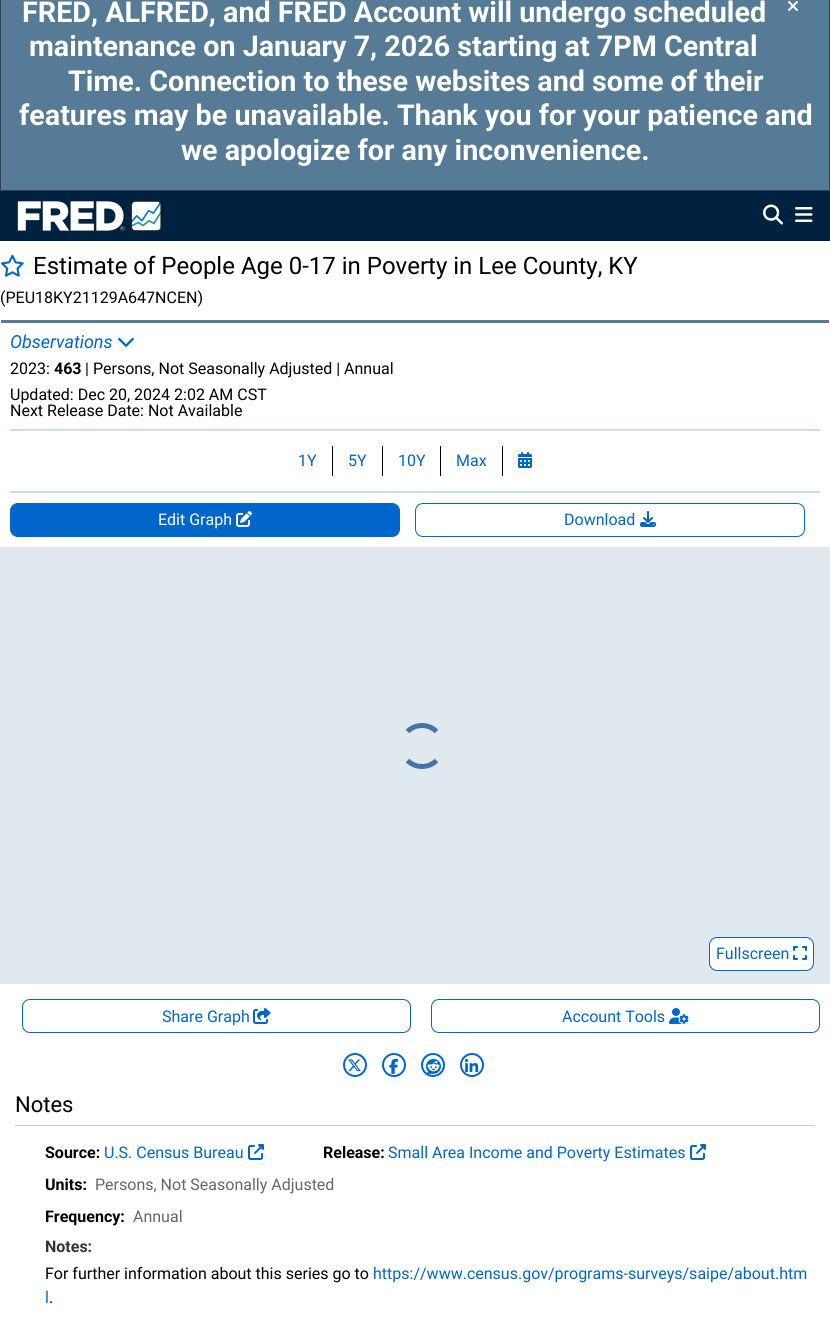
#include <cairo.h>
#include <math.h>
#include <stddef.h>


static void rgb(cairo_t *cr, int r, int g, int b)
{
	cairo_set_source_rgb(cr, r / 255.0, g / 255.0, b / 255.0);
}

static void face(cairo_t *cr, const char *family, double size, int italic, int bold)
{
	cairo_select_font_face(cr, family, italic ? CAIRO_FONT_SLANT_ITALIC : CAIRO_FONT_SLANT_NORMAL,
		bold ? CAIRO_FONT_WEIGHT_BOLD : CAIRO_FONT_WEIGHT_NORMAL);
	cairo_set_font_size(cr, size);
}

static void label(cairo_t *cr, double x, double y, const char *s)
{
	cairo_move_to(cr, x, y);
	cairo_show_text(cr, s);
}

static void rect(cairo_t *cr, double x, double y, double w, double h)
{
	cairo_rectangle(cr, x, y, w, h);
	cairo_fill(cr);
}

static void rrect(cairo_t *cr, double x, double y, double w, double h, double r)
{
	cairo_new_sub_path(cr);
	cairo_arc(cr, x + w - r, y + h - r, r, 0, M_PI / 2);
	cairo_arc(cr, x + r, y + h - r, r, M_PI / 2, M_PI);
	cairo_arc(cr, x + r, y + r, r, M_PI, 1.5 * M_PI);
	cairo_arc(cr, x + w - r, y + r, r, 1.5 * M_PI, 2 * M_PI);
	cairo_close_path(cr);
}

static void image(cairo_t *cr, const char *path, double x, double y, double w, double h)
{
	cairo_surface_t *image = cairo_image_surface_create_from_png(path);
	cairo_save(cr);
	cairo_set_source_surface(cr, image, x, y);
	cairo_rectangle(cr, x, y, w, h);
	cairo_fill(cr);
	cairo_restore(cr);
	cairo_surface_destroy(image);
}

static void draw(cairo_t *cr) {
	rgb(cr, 255, 255, 255);
	cairo_paint(cr);
	rgb(cr, 85, 123, 151);
	cairo_rectangle(cr, 0.5, -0.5, 829, 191);
	cairo_fill_preserve(cr);
	rgb(cr, 43, 62, 90);
	cairo_set_line_width(cr, 1);
	cairo_stroke(cr);
	face(cr, "Roboto", 28.7, 0, 1);
	rgb(cr, 255, 255, 255);
	label(cr, 22, 22, "FRED, ALFRED, and FRED Account will undergo scheduled");
	label(cr, 29, 56, "maintenance on January 7, 2026 starting at 7PM Central");
	label(cr, 68, 91, "Time. Connection to these websites and some of their");
	label(cr, 19, 125, "features may be unavailable. Thank you for your patience and");
	label(cr, 181, 160, "we apologize for any inconvenience.");
	image(cr, "image0.png", 788, 1, 10, 10);
	rgb(cr, 0, 34, 65);
	rect(cr, 0, 191, 830, 50);
	image(cr, "image1.png", 17, 201, 145, 30);
	image(cr, "image2.png", 763, 204, 20, 21);
	image(cr, "image3.png", 795, 207, 18, 15);
	image(cr, "image4.png", 1, 254, 23, 23);
	face(cr, "Roboto", 24, 0, 0);
	rgb(cr, 0, 0, 0);
	label(cr, 33, 274, "Estimate of People Age 0-17 in Poverty in Lee County, KY");
	face(cr, "Roboto", 16, 0, 0);
	label(cr, 0, 303, "(PEU18KY21129A647NCEN)");
	rgb(cr, 85, 123, 151);
	rect(cr, 1, 320, 828, 3);
	rgb(cr, 202, 225, 229);
	rect(cr, 10, 429, 810, 2);
	face(cr, "Roboto", 18, 1, 0);
	rgb(cr, 0, 102, 204);
	label(cr, 10, 348, "Observations");
	image(cr, "image5.png", 118, 337, 16, 10);
	face(cr, "Roboto", 16, 0, 0);
	rgb(cr, 0, 0, 0);
	label(cr, 10, 374, "2023:");
	face(cr, "Roboto", 16, 0, 1);
	label(cr, 54, 374, "463");
	face(cr, "Roboto", 16, 0, 0);
	label(cr, 85, 374, "| Persons, Not Seasonally Adjusted | Annual");
	label(cr, 10, 400, "Updated: Dec 20, 2024 2:02 AM CST");
	label(cr, 10, 416, "Next Release Date: Not Available");
	rgb(cr, 202, 225, 229);
	rect(cr, 10, 491, 810, 2);
	rgb(cr, 0, 0, 0);
	rect(cr, 332, 446, 171, 30);
	rgb(cr, 0, 102, 204);
	label(cr, 298, 466, "1Y");
	rgb(cr, 255, 255, 255);
	rect(cr, 333, 446, 49, 30);
	rgb(cr, 0, 102, 204);
	label(cr, 348, 466, "5Y");
	rgb(cr, 255, 255, 255);
	rect(cr, 383, 446, 57, 30);
	rgb(cr, 0, 102, 204);
	label(cr, 398, 466, "10Y");
	rgb(cr, 255, 255, 255);
	rect(cr, 441, 446, 61, 30);
	rgb(cr, 0, 102, 204);
	label(cr, 456, 466, "Max");
	image(cr, "image6.png", 518, 452, 14, 16);
	rrect(cr, 10.5, 503.5, 389, 33, 7.5);
	cairo_fill_preserve(cr);
	cairo_stroke(cr);
	rgb(cr, 255, 255, 255);
	label(cr, 158, 525, "Edit Graph");
	image(cr, "image7.png", 236, 511, 16, 16);
	rrect(cr, 415.5, 503.5, 389, 33, 7.5);
	rgb(cr, 0, 102, 204);
	cairo_stroke(cr);
	label(cr, 564, 525, "Download");
	image(cr, "image8.png", 640, 511, 16, 16);
	rgb(cr, 225, 233, 240);
	rect(cr, 0, 547, 830, 437);
	cairo_new_path(cr);
	cairo_move_to(cr, 407.5, 731.5);
	cairo_curve_to(cr, 415.5, 723.5, 428.5, 723.5, 436.5, 731.5);
	cairo_move_to(cr, 436.5, 760.5);
	cairo_curve_to(cr, 428.5, 768.5, 415.5, 768.5, 407.5, 760.5);
	rgb(cr, 69, 114, 167);
	cairo_set_line_width(cr, 5);
	cairo_stroke(cr);
	rgb(cr, 255, 255, 255);
	rrect(cr, 709.5, 937.5, 104, 33, 7.5);
	cairo_fill_preserve(cr);
	rgb(cr, 0, 102, 204);
	cairo_set_line_width(cr, 1);
	cairo_stroke(cr);
	label(cr, 716, 959, "Fullscreen");
	image(cr, "image9.png", 793, 946, 14, 14);
	rrect(cr, 22.5, 999.5, 388, 33, 7.5);
	cairo_stroke(cr);
	label(cr, 162, 1022, "Share Graph");
	image(cr, "image10.png", 253, 1008, 18, 16);
	rrect(cr, 431.5, 999.5, 388, 33, 7.5);
	cairo_stroke(cr);
	label(cr, 562, 1022, "Account Tools");
	image(cr, "image11.png", 669, 1008, 20, 16);
	image(cr, "image12.png", 348, 1059, 13, 13);
	cairo_arc(cr, 355, 1065, 11, 0, 2 * M_PI);
	cairo_set_line_width(cr, 2);
	cairo_stroke(cr);
	cairo_arc(cr, 394, 1065, 11, 0, 2 * M_PI);
	cairo_stroke(cr);
	image(cr, "image13.png", 389, 1058, 9, 16);
	cairo_arc(cr, 433, 1065, 11, 0, 2 * M_PI);
	cairo_stroke(cr);
	image(cr, "image14.png", 426, 1058, 15, 16);
	cairo_arc(cr, 472, 1065, 11, 0, 2 * M_PI);
	cairo_stroke(cr);
	image(cr, "image15.png", 465, 1058, 14, 14);
	rgb(cr, 204, 204, 204);
	rect(cr, 15, 1125, 800, 1);
	face(cr, "Roboto", 22, 0, 0);
	rgb(cr, 0, 0, 0);
	label(cr, 15, 1112, "Notes");
	face(cr, "Roboto", 16, 0, 1);
	label(cr, 45, 1158, "Source:");
	face(cr, "Roboto", 16, 0, 0);
	rgb(cr, 0, 102, 204);
	label(cr, 104, 1158, "U.S. Census Bureau");
	image(cr, "image16.png", 248, 1144, 16, 16);
	face(cr, "Roboto", 16, 0, 1);
	rgb(cr, 0, 0, 0);
	label(cr, 323, 1158, "Release:");
	face(cr, "Roboto", 16, 0, 0);
	rgb(cr, 0, 102, 204);
	label(cr, 388, 1158, "Small Area Income and Poverty Estimates");
	image(cr, "image16.png", 690, 1144, 16, 16);
	face(cr, "Roboto", 16, 0, 1);
	rgb(cr, 0, 0, 0);
	label(cr, 45, 1190, "Units:");
	face(cr, "Roboto", 16, 0, 0);
	rgb(cr, 102, 102, 102);
	label(cr, 95, 1190, "Persons, Not Seasonally Adjusted");
	face(cr, "Roboto", 16, 0, 1);
	rgb(cr, 0, 0, 0);
	label(cr, 45, 1222, "Frequency:");
	face(cr, "Roboto", 16, 0, 0);
	rgb(cr, 102, 102, 102);
	label(cr, 133, 1222, "Annual");
	face(cr, "Roboto", 16, 0, 1);
	rgb(cr, 51, 51, 51);
	label(cr, 45, 1252, "Notes:");
	face(cr, "Roboto", 16, 0, 0);
	rgb(cr, 0, 0, 0);
	label(cr, 45, 1279, "For further information about this series go to");
	rgb(cr, 0, 102, 204);
	label(cr, 373, 1279, "https://www.census.gov/programs-surveys/saipe/about.htm");
	label(cr, 45, 1303, "l");
	rgb(cr, 0, 0, 0);
	label(cr, 49, 1303, ".");
}

int main(void) {
	cairo_surface_t *surface = cairo_image_surface_create(CAIRO_FORMAT_RGB24, 830, 1323);
	cairo_t *cr = cairo_create(surface);
	cairo_font_options_t *options = cairo_font_options_create();
	cairo_font_options_set_hint_metrics(options, CAIRO_HINT_METRICS_OFF);
	cairo_font_options_set_hint_style(options, CAIRO_HINT_STYLE_NONE);
	cairo_set_font_options(cr, options);
	cairo_set_miter_limit(cr, 4);
	draw(cr);
	cairo_surface_write_to_png(surface, "render.png");
	cairo_font_options_destroy(options);
	cairo_destroy(cr);
	cairo_surface_destroy(surface);
	return 0;
}
